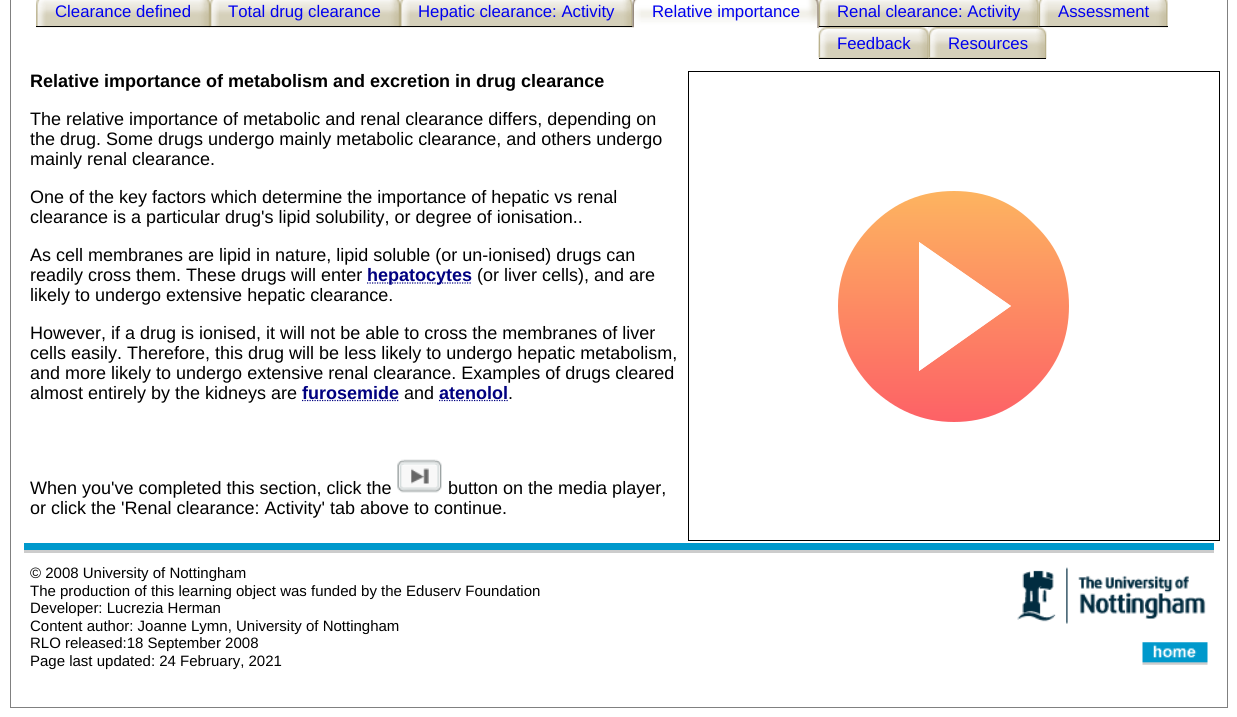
#include <cairo.h>
#include <math.h>
#include <stddef.h>


static void rgb(cairo_t *cr, int r, int g, int b)
{
	cairo_set_source_rgb(cr, r / 255.0, g / 255.0, b / 255.0);
}

static void face(cairo_t *cr, const char *family, double size, int italic, int bold)
{
	cairo_select_font_face(cr, family, italic ? CAIRO_FONT_SLANT_ITALIC : CAIRO_FONT_SLANT_NORMAL,
		bold ? CAIRO_FONT_WEIGHT_BOLD : CAIRO_FONT_WEIGHT_NORMAL);
	cairo_set_font_size(cr, size);
}

static void label(cairo_t *cr, double x, double y, const char *s)
{
	cairo_move_to(cr, x, y);
	cairo_show_text(cr, s);
}

static void rect(cairo_t *cr, double x, double y, double w, double h)
{
	cairo_rectangle(cr, x, y, w, h);
	cairo_fill(cr);
}

static void image(cairo_t *cr, const char *path, double x, double y, double w, double h)
{
	cairo_surface_t *image = cairo_image_surface_create_from_png(path);
	cairo_save(cr);
	cairo_set_source_surface(cr, image, x, y);
	cairo_rectangle(cr, x, y, w, h);
	cairo_fill(cr);
	cairo_restore(cr);
	cairo_surface_destroy(image);
}

static void draw(cairo_t *cr) {
	cairo_pattern_t *gradient;
	rgb(cr, 255, 255, 255);
	cairo_paint(cr);
	cairo_rectangle(cr, 10.5, -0.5, 1217, 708);
	rgb(cr, 128, 128, 128);
	cairo_set_line_width(cr, 1);
	cairo_stroke(cr);
	image(cr, "image0.png", 36, 0, 174, 28);
	rgb(cr, 0, 0, 0);
	rect(cr, 36, 26, 174, 1);
	image(cr, "image1.png", 36, 0, 10, 26);
	face(cr, "Liberation Sans", 16.75, 0, 0);
	rgb(cr, 0, 0, 238);
	label(cr, 55, 17, "Clearance defined");
	image(cr, "image2.png", 210, 0, 190, 28);
	rgb(cr, 0, 0, 0);
	rect(cr, 210, 26, 190, 1);
	image(cr, "image3.png", 210, 0, 9, 26);
	rgb(cr, 0, 0, 238);
	label(cr, 228, 17, "Total drug clearance");
	image(cr, "image4.png", 400, 0, 233, 28);
	rgb(cr, 0, 0, 0);
	rect(cr, 400, 26, 233, 1);
	image(cr, "image5.png", 400, 0, 10, 26);
	rgb(cr, 0, 0, 238);
	label(cr, 418, 17, "Hepatic clearance: Activity");
	image(cr, "image6.png", 632, 0, 187, 29);
	rgb(cr, 255, 255, 255);
	rect(cr, 817, 28, 2, 1);
	image(cr, "image7.png", 632, 0, 9, 28);
	rgb(cr, 0, 0, 238);
	label(cr, 652, 17, "Relative importance");
	image(cr, "image8.png", 818, 0, 221, 28);
	rgb(cr, 0, 0, 0);
	rect(cr, 819, 26, 220, 1);
	image(cr, "image9.png", 818, 0, 10, 26);
	rgb(cr, 0, 0, 238);
	label(cr, 837, 17, "Renal clearance: Activity");
	image(cr, "image10.png", 1038, 0, 130, 28);
	rgb(cr, 0, 0, 0);
	rect(cr, 1039, 26, 129, 1);
	image(cr, "image11.png", 1038, 0, 10, 26);
	rgb(cr, 0, 0, 238);
	label(cr, 1058, 17, "Assessment");
	image(cr, "image12.png", 818, 27, 111, 32);
	rgb(cr, 0, 0, 0);
	rect(cr, 819, 58, 110, 1);
	image(cr, "image13.png", 818, 27, 12, 31);
	rgb(cr, 0, 0, 238);
	label(cr, 837, 49, "Feedback");
	image(cr, "image14.png", 928, 27, 119, 32);
	rgb(cr, 0, 0, 0);
	rect(cr, 929, 58, 117, 1);
	image(cr, "image15.png", 928, 27, 12, 31);
	rgb(cr, 0, 0, 238);
	label(cr, 948, 49, "Resources");
	face(cr, "Liberation Sans", 18, 0, 1);
	rgb(cr, 0, 0, 0);
	label(cr, 30, 87, "Relative importance of metabolism and excretion in drug clearance");
	cairo_rectangle(cr, 688.5, 71.5, 531, 469);
	cairo_stroke(cr);
	gradient = cairo_pattern_create_linear(954, 191, 954, 422);
	cairo_pattern_add_color_stop_rgba(gradient, 0, 0.992, 0.706, 0.376, 1);
	cairo_pattern_add_color_stop_rgba(gradient, 1, 0.992, 0.38, 0.4, 1);
	cairo_set_source(cr, gradient);
	cairo_pattern_destroy(gradient);
	cairo_new_path(cr);
	cairo_move_to(cr, 1069, 306);
	cairo_curve_to(cr, 1069, 274, 1058, 247, 1035, 225);
	cairo_curve_to(cr, 1013, 202, 986, 191, 954, 191);
	cairo_curve_to(cr, 922, 191, 895, 202, 872, 225);
	cairo_curve_to(cr, 850, 247, 838, 274, 838, 306);
	cairo_curve_to(cr, 838, 338, 850, 365, 872, 388);
	cairo_curve_to(cr, 895, 410, 922, 422, 954, 422);
	cairo_curve_to(cr, 986, 422, 1013, 410, 1035, 388);
	cairo_curve_to(cr, 1058, 365, 1069, 338, 1069, 306);
	cairo_move_to(cr, 919, 371);
	cairo_line_to(cr, 919, 242);
	cairo_line_to(cr, 1011, 306);
	cairo_close_path(cr);
	cairo_fill(cr);
	rgb(cr, 255, 255, 255);
	cairo_new_path(cr);
	cairo_move_to(cr, 919, 242);
	cairo_line_to(cr, 919, 371);
	cairo_line_to(cr, 1011, 306);
	cairo_close_path(cr);
	cairo_fill(cr);
	face(cr, "Liberation Sans", 18, 0, 0);
	rgb(cr, 0, 0, 0);
	label(cr, 30, 125, "The relative importance of metabolic and renal clearance differs, depending on");
	label(cr, 30, 145, "the drug. Some drugs undergo mainly metabolic clearance, and others undergo");
	label(cr, 30, 165, "mainly renal clearance.");
	label(cr, 30, 203, "One of the key factors which determine the importance of hepatic vs renal");
	label(cr, 30, 223, "clearance is a particular drug's lipid solubility, or degree of ionisation..");
	label(cr, 30, 261, "As cell membranes are lipid in nature, lipid soluble (or un-ionised) drugs can");
	label(cr, 30, 281, "readily cross them. These drugs will enter");
	cairo_new_path(cr);
	cairo_move_to(cr, 367, 283);
	cairo_line_to(cr, 472, 283);
	rgb(cr, 0, 0, 128);
	cairo_set_line_width(cr, 1.2);
	cairo_set_dash(cr, (double[]){1.25, 1.25}, 2, 0);
	cairo_stroke(cr);
	face(cr, "Liberation Sans", 18, 0, 1);
	label(cr, 367, 281, "hepatocytes");
	face(cr, "Liberation Sans", 18, 0, 0);
	rgb(cr, 0, 0, 0);
	label(cr, 477, 281, "(or liver cells), and are");
	label(cr, 30, 301, "likely to undergo extensive hepatic clearance.");
	label(cr, 30, 339, "However, if a drug is ionised, it will not be able to cross the membranes of liver");
	label(cr, 30, 359, "cells easily. Therefore, this drug will be less likely to undergo hepatic metabolism,");
	label(cr, 30, 379, "and more likely to undergo extensive renal clearance. Examples of drugs cleared");
	label(cr, 30, 399, "almost entirely by the kidneys are");
	cairo_new_path(cr);
	cairo_move_to(cr, 302, 400.5);
	cairo_line_to(cr, 399, 400.5);
	rgb(cr, 0, 0, 128);
	cairo_stroke(cr);
	face(cr, "Liberation Sans", 18, 0, 1);
	label(cr, 302, 399, "furosemide");
	face(cr, "Liberation Sans", 18, 0, 0);
	rgb(cr, 0, 0, 0);
	label(cr, 404, 399, "and");
	cairo_new_path(cr);
	cairo_move_to(cr, 439, 400.5);
	cairo_line_to(cr, 508, 400.5);
	rgb(cr, 0, 0, 128);
	cairo_stroke(cr);
	face(cr, "Liberation Sans", 18, 0, 1);
	label(cr, 439, 399, "atenolol");
	face(cr, "Liberation Sans", 18, 0, 0);
	rgb(cr, 0, 0, 0);
	label(cr, 508, 399, ".");
	label(cr, 30, 494, "When you've completed this section, click the");
	image(cr, "image16.png", 397, 459, 45, 34);
	label(cr, 448, 494, "button on the media player,");
	label(cr, 30, 514, "or click the 'Renal clearance: Activity' tab above to continue.");
	rgb(cr, 0, 153, 204);
	rect(cr, 24, 543, 1190, 7);
	rgb(cr, 204, 204, 204);
	rect(cr, 24, 550, 1190, 3);
	face(cr, "Liberation Sans", 15, 0, 0);
	rgb(cr, 0, 0, 0);
	label(cr, 30, 578, "© 2008 University of Nottingham");
	image(cr, "image17.png", 1017, 567, 189, 57);
	image(cr, "image18.png", 1142, 642, 66, 23);
	label(cr, 30, 596, "The production of this learning object was funded by the Eduserv Foundation");
	label(cr, 30, 613, "Developer: Lucrezia Herman");
	label(cr, 30, 631, "Content author: Joanne Lymn, University of Nottingham");
	label(cr, 30, 648, "RLO released:18 September 2008");
	label(cr, 30, 666, "Page last updated: 24 February, 2021");
}

int main(void) {
	cairo_surface_t *surface = cairo_image_surface_create(CAIRO_FORMAT_RGB24, 1237, 717);
	cairo_t *cr = cairo_create(surface);
	cairo_font_options_t *options = cairo_font_options_create();
	cairo_font_options_set_hint_metrics(options, CAIRO_HINT_METRICS_OFF);
	cairo_font_options_set_hint_style(options, CAIRO_HINT_STYLE_NONE);
	cairo_set_font_options(cr, options);
	cairo_set_miter_limit(cr, 4);
	draw(cr);
	cairo_surface_write_to_png(surface, "render.png");
	cairo_font_options_destroy(options);
	cairo_destroy(cr);
	cairo_surface_destroy(surface);
	return 0;
}
